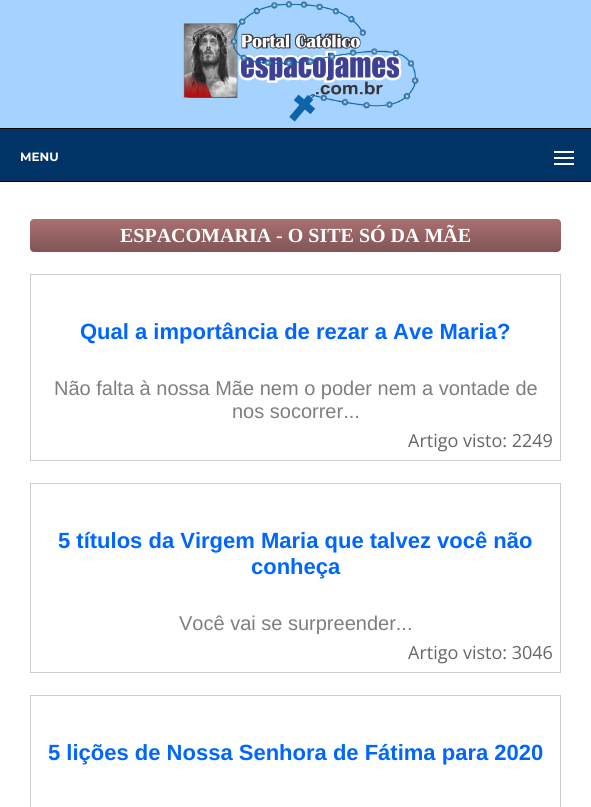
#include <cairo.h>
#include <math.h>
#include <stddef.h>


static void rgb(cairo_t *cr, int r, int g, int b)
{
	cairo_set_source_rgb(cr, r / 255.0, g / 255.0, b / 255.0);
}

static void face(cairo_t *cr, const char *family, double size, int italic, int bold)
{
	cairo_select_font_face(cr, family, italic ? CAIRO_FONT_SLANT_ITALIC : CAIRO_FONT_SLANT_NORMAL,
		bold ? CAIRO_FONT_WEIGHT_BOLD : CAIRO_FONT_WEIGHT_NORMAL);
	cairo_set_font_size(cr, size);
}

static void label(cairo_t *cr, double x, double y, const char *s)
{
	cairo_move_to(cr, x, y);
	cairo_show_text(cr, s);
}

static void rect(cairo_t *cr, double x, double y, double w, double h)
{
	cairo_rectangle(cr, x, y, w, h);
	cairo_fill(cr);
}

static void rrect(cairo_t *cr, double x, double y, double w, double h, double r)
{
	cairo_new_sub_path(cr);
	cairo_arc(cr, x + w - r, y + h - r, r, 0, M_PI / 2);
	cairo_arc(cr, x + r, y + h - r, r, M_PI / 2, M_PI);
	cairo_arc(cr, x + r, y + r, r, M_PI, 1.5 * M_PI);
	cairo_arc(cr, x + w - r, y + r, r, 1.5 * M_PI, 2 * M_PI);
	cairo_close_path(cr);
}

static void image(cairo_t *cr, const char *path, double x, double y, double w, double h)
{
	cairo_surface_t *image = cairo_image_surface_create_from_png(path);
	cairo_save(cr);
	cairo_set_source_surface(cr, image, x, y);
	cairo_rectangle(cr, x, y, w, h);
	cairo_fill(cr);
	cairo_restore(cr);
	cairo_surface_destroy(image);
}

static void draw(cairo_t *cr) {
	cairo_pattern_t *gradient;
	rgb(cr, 255, 255, 255);
	cairo_paint(cr);
	rgb(cr, 166, 210, 255);
	rect(cr, 0, 0, 591, 128);
	image(cr, "image0.png", 183, 1, 236, 121);
	rgb(cr, 0, 0, 0);
	rect(cr, 0, 128, 591, 54);
	rgb(cr, 0, 51, 102);
	rect(cr, 0, 129, 591, 52);
	face(cr, "Montserrat", 12, 0, 1);
	rgb(cr, 255, 255, 255);
	label(cr, 20, 161, "MENU");
	rect(cr, 554, 151, 20, 2);
	rect(cr, 554, 157, 20, 2);
	rect(cr, 554, 163, 20, 2);
	gradient = cairo_pattern_create_linear(296, 219, 296, 252);
	cairo_pattern_add_color_stop_rgba(gradient, 0, 0.667, 0.439, 0.439, 1);
	cairo_pattern_add_color_stop_rgba(gradient, 1, 0.506, 0.333, 0.333, 1);
	cairo_set_source(cr, gradient);
	cairo_pattern_destroy(gradient);
	rrect(cr, 30, 219, 531, 33, 4);
	cairo_fill(cr);
	face(cr, "Liberation Serif", 20, 0, 1);
	rgb(cr, 255, 255, 255);
	label(cr, 120, 242, "ESPACOMARIA - O SITE SÓ DA MÃE");
	cairo_rectangle(cr, 30.5, 274.5, 530, 186);
	rgb(cr, 204, 204, 204);
	cairo_set_line_width(cr, 1);
	cairo_stroke(cr);
	face(cr, "Liberation Sans", 22, 0, 1);
	rgb(cr, 0, 102, 255);
	label(cr, 80, 339, "Qual a importância de rezar a Ave Maria?");
	face(cr, "Liberation Sans", 20, 0, 0);
	rgb(cr, 126, 126, 126);
	label(cr, 54, 395, "Não falta à nossa Mãe nem o poder nem a vontade de");
	label(cr, 232, 418, "nos socorrer...");
	face(cr, "Open Sans", 18, 0, 0);
	rgb(cr, 102, 102, 102);
	label(cr, 408, 447, "Artigo visto: 2249");
	cairo_rectangle(cr, 30.5, 483.5, 530, 189);
	rgb(cr, 204, 204, 204);
	cairo_stroke(cr);
	face(cr, "Liberation Sans", 22, 0, 1);
	rgb(cr, 0, 102, 255);
	label(cr, 58, 548, "5 títulos da Virgem Maria que talvez você não");
	label(cr, 251, 574, "conheça");
	face(cr, "Liberation Sans", 20, 0, 0);
	rgb(cr, 126, 126, 126);
	label(cr, 179, 630, "Você vai se surpreender...");
	face(cr, "Open Sans", 18, 0, 0);
	rgb(cr, 102, 102, 102);
	label(cr, 408, 659, "Artigo visto: 3046");
	cairo_rectangle(cr, 30.5, 695.5, 530, 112);
	rgb(cr, 204, 204, 204);
	cairo_stroke(cr);
	face(cr, "Liberation Sans", 22, 0, 1);
	rgb(cr, 0, 102, 255);
	label(cr, 48, 760, "5 lições de Nossa Senhora de Fátima para 2020");
}

int main(void) {
	cairo_surface_t *surface = cairo_image_surface_create(CAIRO_FORMAT_RGB24, 591, 807);
	cairo_t *cr = cairo_create(surface);
	cairo_font_options_t *options = cairo_font_options_create();
	cairo_font_options_set_hint_metrics(options, CAIRO_HINT_METRICS_OFF);
	cairo_font_options_set_hint_style(options, CAIRO_HINT_STYLE_NONE);
	cairo_set_font_options(cr, options);
	cairo_set_miter_limit(cr, 4);
	draw(cr);
	cairo_surface_write_to_png(surface, "render.png");
	cairo_font_options_destroy(options);
	cairo_destroy(cr);
	cairo_surface_destroy(surface);
	return 0;
}
